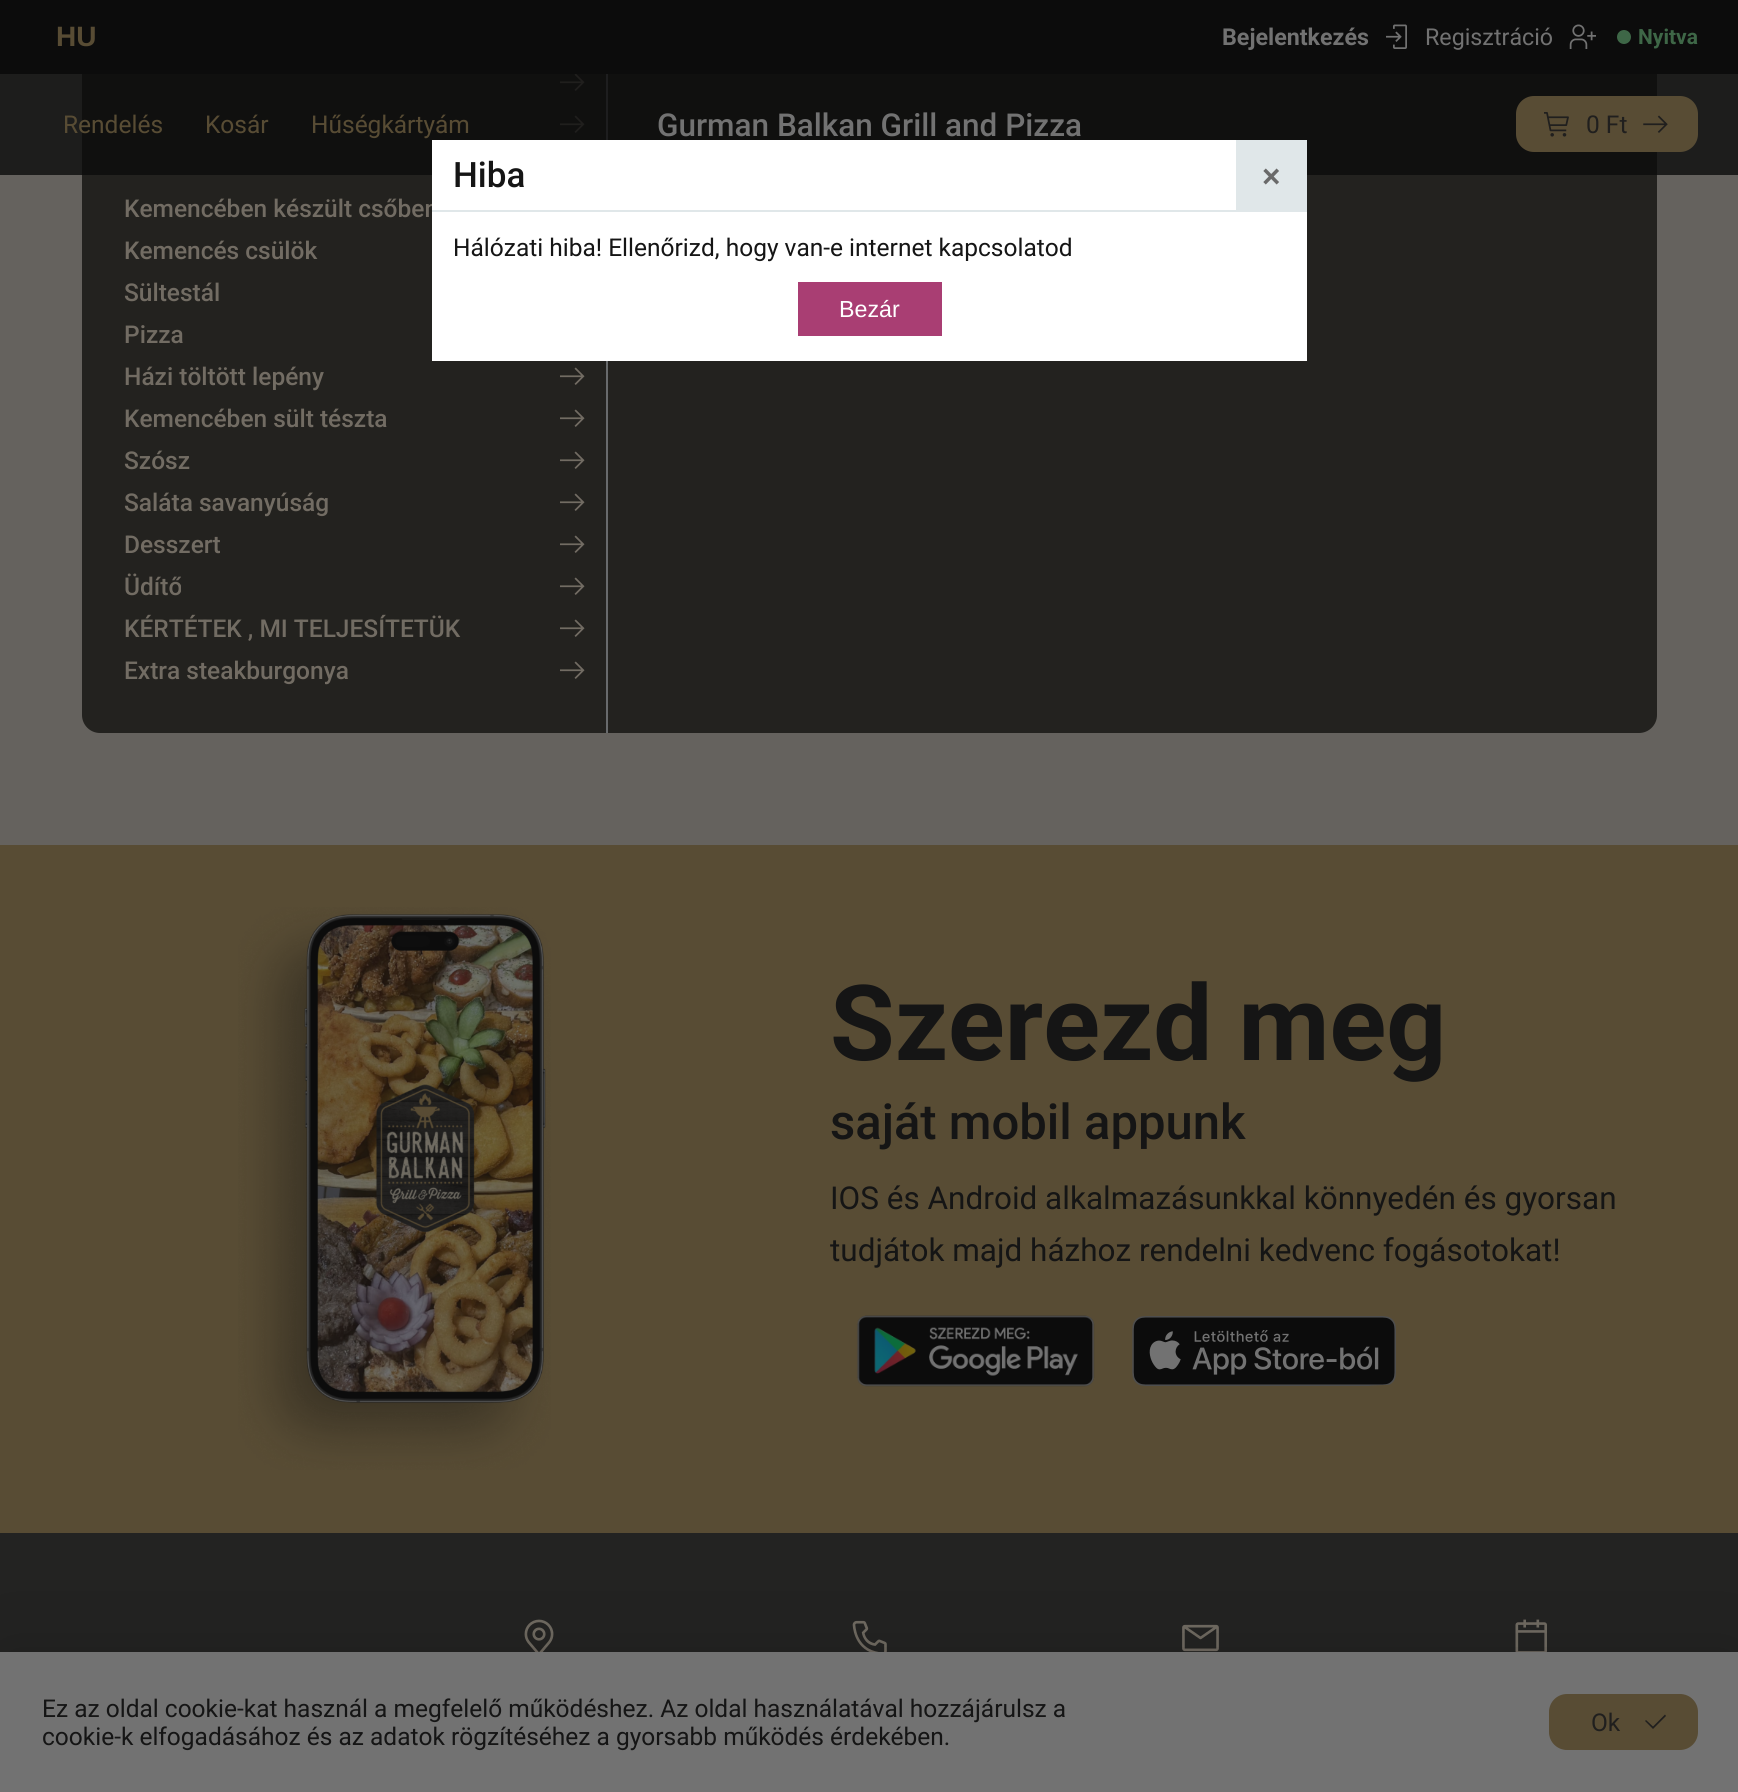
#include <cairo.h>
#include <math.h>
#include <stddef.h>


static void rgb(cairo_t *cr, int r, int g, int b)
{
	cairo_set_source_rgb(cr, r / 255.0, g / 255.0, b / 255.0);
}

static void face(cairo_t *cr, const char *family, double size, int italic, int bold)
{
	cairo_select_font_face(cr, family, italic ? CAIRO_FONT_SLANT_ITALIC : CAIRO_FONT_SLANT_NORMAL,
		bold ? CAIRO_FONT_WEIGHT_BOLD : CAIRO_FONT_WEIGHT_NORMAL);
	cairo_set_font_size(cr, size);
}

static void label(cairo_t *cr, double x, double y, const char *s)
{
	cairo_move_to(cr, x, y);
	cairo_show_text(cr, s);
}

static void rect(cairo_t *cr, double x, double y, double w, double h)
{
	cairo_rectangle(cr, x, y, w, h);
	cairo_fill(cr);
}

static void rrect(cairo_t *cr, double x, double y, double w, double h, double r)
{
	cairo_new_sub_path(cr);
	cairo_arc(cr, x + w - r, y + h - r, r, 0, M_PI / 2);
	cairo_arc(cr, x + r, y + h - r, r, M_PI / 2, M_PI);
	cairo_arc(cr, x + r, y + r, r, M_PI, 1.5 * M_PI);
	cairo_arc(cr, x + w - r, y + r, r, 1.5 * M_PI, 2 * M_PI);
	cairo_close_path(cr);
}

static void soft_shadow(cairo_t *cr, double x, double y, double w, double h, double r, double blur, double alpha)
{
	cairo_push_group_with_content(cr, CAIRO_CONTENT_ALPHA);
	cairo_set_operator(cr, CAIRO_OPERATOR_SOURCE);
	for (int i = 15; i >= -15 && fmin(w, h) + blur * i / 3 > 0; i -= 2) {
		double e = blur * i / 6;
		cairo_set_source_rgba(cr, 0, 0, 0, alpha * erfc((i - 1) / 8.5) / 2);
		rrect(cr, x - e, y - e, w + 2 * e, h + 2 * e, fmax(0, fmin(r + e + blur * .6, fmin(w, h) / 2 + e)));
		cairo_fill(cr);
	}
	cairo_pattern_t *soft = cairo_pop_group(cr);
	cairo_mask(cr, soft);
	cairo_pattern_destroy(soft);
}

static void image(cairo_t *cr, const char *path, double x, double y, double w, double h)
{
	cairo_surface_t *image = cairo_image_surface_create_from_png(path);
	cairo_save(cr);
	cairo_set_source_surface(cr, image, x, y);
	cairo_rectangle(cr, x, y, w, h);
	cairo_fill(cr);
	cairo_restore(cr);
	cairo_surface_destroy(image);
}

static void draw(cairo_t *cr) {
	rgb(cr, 101, 98, 94);
	cairo_paint(cr);
	rgb(cr, 35, 34, 31);
	rrect(cr, 82, -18, 1575, 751, 18);
	cairo_fill(cr);
	rgb(cr, 104, 106, 108);
	rect(cr, 606, 74, 2, 659);
	image(cr, "image4.png", 560, 74, 25, 17);
	image(cr, "image5.png", 560, 115, 25, 18);
	cairo_set_source_rgba(cr, 0.047, 0.047, 0.047, 0.8);
	rect(cr, 0, 74, 1738, 101);
	rgb(cr, 12, 12, 12);
	rect(cr, 0, 0, 1738, 74);
	face(cr, "Liberation Sans", 28, 0, 1);
	rgb(cr, 88, 76, 52);
	label(cr, 56, 46, "HU");
	face(cr, "Roboto", 23.25, 0, 1);
	rgb(cr, 114, 114, 114);
	label(cr, 1222, 45, "Bejelentkezés");
	image(cr, "image0.png", 1386, 24, 21, 25);
	face(cr, "Roboto", 23.25, 0, 0);
	label(cr, 1425, 45, "Regisztráció");
	image(cr, "image1.png", 1569, 24, 27, 25);
	rgb(cr, 62, 103, 71);
	cairo_arc(cr, 1624, 37, 7, 0, 2 * M_PI);
	cairo_fill(cr);
	face(cr, "Roboto", 21, 0, 1);
	label(cr, 1638, 44, "Nyitva");
	face(cr, "Roboto", 24.5, 0, 0);
	rgb(cr, 88, 76, 52);
	label(cr, 63, 133, "Rendelés");
	label(cr, 205, 133, "Kosár");
	label(cr, 311, 133, "Hűségkártyám");
	face(cr, "Roboto Medium", 31.5, 0, 0);
	rgb(cr, 114, 114, 114);
	label(cr, 657, 136, "Gurman Balkan Grill and Pizza");
	rgb(cr, 88, 76, 52);
	rrect(cr, 1516, 96, 182, 56, 18);
	cairo_fill(cr);
	image(cr, "image2.png", 1544, 112, 25, 25);
	face(cr, "Roboto", 24.5, 0, 0);
	rgb(cr, 32, 31, 30);
	label(cr, 1586, 133, "0 Ft");
	image(cr, "image3.png", 1643, 115, 25, 18);
	face(cr, "Roboto Medium", 24.5, 0, 0);
	rgb(cr, 114, 108, 99);
	label(cr, 124, 217, "Kemencében készült csőben");
	label(cr, 124, 259, "Kemencés csülök");
	label(cr, 124, 301, "Sültestál");
	label(cr, 124, 343, "Pizza");
	label(cr, 124, 385, "Házi töltött lepény");
	image(cr, "image5.png", 560, 367, 25, 18);
	label(cr, 124, 427, "Kemencében sült tészta");
	image(cr, "image5.png", 560, 409, 25, 18);
	label(cr, 124, 469, "Szósz");
	image(cr, "image5.png", 560, 451, 25, 18);
	label(cr, 124, 511, "Saláta savanyúság");
	image(cr, "image5.png", 560, 493, 25, 18);
	label(cr, 124, 553, "Desszert");
	image(cr, "image5.png", 560, 535, 25, 18);
	label(cr, 124, 595, "Üdítő");
	image(cr, "image5.png", 560, 577, 25, 18);
	label(cr, 124, 637, "KÉRTÉTEK , MI TELJESÍTETÜK");
	image(cr, "image5.png", 560, 619, 25, 18);
	label(cr, 124, 679, "Extra steakburgonya");
	image(cr, "image5.png", 560, 661, 25, 18);
	rgb(cr, 88, 76, 52);
	rect(cr, 0, 845, 1738, 688);
	image(cr, "image6.png", 238, 907, 313, 563);
	face(cr, "Roboto", 105, 0, 1);
	rgb(cr, 21, 21, 21);
	label(cr, 830, 1060, "Szerezd meg");
	face(cr, "Roboto Medium", 49, 0, 0);
	label(cr, 830, 1139, "saját mobil appunk");
	face(cr, "Roboto", 31.5, 0, 0);
	label(cr, 830, 1209, "IOS és Android alkalmazásunkkal könnyedén és gyorsan");
	label(cr, 830, 1261, "tudjátok majd házhoz rendelni kedvenc fogásotokat!");
	image(cr, "image7.png", 856, 1315, 239, 72);
	image(cr, "image8.png", 1132, 1316, 264, 70);
	rgb(cr, 35, 35, 34);
	rect(cr, 0, 1533, 1738, 119);
	image(cr, "image9.png", 524, 1619, 30, 33);
	image(cr, "image10.png", 852, 1620, 35, 32);
	image(cr, "image11.png", 1182, 1624, 37, 28);
	image(cr, "image12.png", 1515, 1619, 32, 33);
	rgb(cr, 255, 255, 255);
	rect(cr, 432, 140, 875, 221);
	rgb(cr, 224, 231, 233);
	rect(cr, 432, 210, 804, 2);
	face(cr, "Roboto Medium", 35, 0, 0);
	rgb(cr, 21, 21, 21);
	label(cr, 453, 187, "Hiba");
	rgb(cr, 224, 231, 233);
	rect(cr, 1236, 140, 71, 72);
	rgb(cr, 106, 106, 106);
	label(cr, 1262, 188, "×");
	face(cr, "Roboto", 24.5, 0, 0);
	rgb(cr, 21, 21, 21);
	label(cr, 453, 256, "Hálózati hiba! Ellenőrizd, hogy van-e internet kapcsolatod");
	rgb(cr, 169, 62, 115);
	rect(cr, 798, 282, 144, 54);
	face(cr, "Liberation Sans", 23.25, 0, 0);
	rgb(cr, 255, 255, 255);
	label(cr, 839, 317, "Bezár");
	rgb(cr, 12, 12, 12);
	soft_shadow(cr, 0, 1654, 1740, 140, 0, 42, 0.24);
	rgb(cr, 114, 114, 114);
	rect(cr, 0, 1652, 1738, 140);
	face(cr, "Roboto", 24.5, 0, 0);
	rgb(cr, 21, 21, 21);
	label(cr, 42, 1717, "Ez az oldal cookie-kat használ a megfelelő működéshez. Az oldal használatával hozzájárulsz a");
	label(cr, 42, 1745, "cookie-k elfogadásához és az adatok rögzítéséhez a gyorsabb működés érdekében.");
	rgb(cr, 88, 76, 52);
	rrect(cr, 1549, 1694, 149, 56, 18);
	cairo_fill(cr);
	rgb(cr, 32, 31, 30);
	label(cr, 1591, 1731, "Ok");
	cairo_new_path(cr);
	cairo_move_to(cr, 1653, 1729);
	cairo_line_to(cr, 1645, 1721);
	cairo_line_to(cr, 1646, 1720);
	cairo_line_to(cr, 1653, 1726.5);
	cairo_line_to(cr, 1665, 1714.5);
	cairo_line_to(cr, 1666, 1716);
	cairo_close_path(cr);
	cairo_fill(cr);
}

int main(void) {
	cairo_surface_t *surface = cairo_image_surface_create(CAIRO_FORMAT_RGB24, 1738, 1792);
	cairo_t *cr = cairo_create(surface);
	cairo_font_options_t *options = cairo_font_options_create();
	cairo_font_options_set_hint_metrics(options, CAIRO_HINT_METRICS_OFF);
	cairo_font_options_set_hint_style(options, CAIRO_HINT_STYLE_NONE);
	cairo_set_font_options(cr, options);
	cairo_set_miter_limit(cr, 4);
	draw(cr);
	cairo_surface_write_to_png(surface, "render.png");
	cairo_font_options_destroy(options);
	cairo_destroy(cr);
	cairo_surface_destroy(surface);
	return 0;
}
